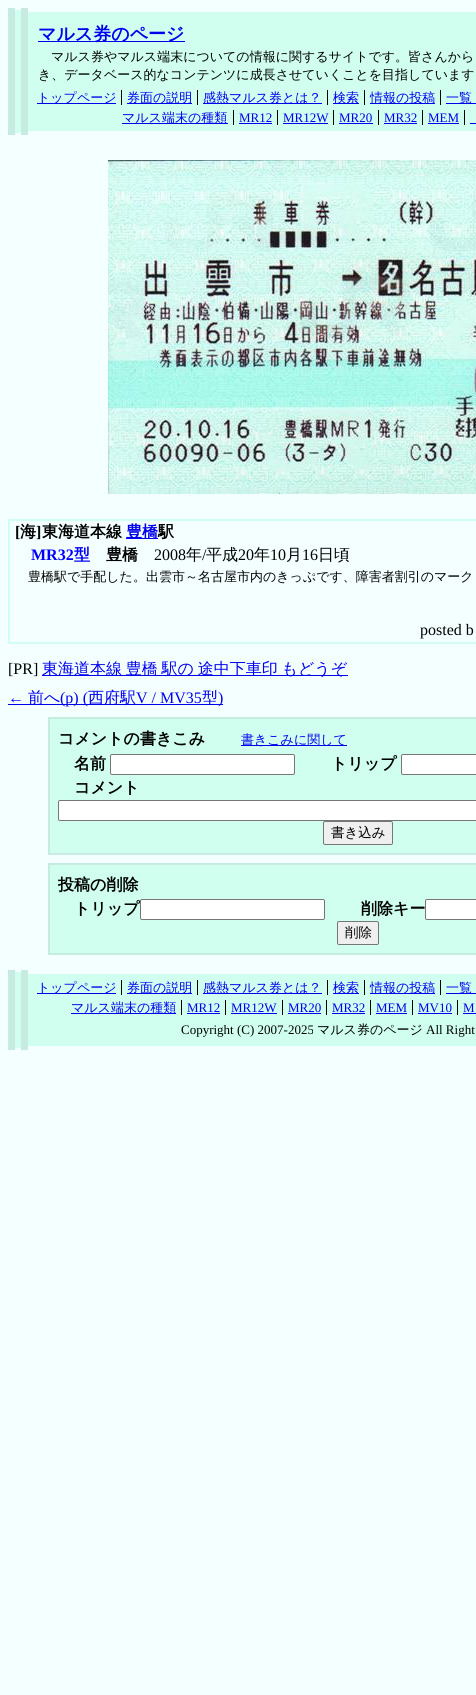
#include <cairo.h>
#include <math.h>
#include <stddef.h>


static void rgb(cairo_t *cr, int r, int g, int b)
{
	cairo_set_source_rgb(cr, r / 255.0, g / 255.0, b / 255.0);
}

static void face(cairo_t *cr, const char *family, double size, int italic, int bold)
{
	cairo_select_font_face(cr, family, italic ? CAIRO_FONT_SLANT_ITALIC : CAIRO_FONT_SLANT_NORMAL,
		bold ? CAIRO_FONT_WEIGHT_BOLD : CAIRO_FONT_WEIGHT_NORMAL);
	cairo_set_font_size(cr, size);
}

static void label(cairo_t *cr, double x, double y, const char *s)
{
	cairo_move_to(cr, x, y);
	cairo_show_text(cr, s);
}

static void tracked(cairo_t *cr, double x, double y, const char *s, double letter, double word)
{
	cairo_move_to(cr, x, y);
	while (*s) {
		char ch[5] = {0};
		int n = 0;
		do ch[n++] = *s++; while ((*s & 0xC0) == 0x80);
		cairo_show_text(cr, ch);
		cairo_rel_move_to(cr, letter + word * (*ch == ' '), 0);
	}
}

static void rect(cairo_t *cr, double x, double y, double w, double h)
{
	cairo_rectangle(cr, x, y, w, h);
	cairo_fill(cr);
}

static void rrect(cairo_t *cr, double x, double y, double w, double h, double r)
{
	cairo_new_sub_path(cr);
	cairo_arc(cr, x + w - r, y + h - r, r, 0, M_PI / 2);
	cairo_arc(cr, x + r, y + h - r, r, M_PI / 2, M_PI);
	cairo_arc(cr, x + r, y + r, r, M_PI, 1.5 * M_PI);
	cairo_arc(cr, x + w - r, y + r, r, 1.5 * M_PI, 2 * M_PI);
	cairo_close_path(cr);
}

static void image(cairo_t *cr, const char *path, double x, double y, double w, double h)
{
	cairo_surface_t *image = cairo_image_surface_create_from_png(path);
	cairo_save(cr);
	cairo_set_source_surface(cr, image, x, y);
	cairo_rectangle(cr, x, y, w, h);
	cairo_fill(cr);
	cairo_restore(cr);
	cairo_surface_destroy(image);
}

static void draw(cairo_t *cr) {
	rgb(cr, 244, 255, 255);
	cairo_paint(cr);
	rgb(cr, 208, 255, 240);
	rect(cr, 15, 9, 461, 125);
	rgb(cr, 244, 255, 255);
	cairo_new_path(cr);
	cairo_move_to(cr, 8, 8);
	cairo_line_to(cr, 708, 8);
	cairo_line_to(cr, 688, 12);
	cairo_line_to(cr, 28, 12);
	cairo_close_path(cr);
	cairo_fill(cr);
	cairo_new_path(cr);
	cairo_move_to(cr, 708, 135);
	cairo_line_to(cr, 8, 135);
	cairo_line_to(cr, 28, 131);
	cairo_line_to(cr, 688, 131);
	cairo_close_path(cr);
	cairo_fill(cr);
	rgb(cr, 199, 235, 224);
	rect(cr, 8, 8, 7, 127);
	rect(cr, 21, 8, 7, 127);
	rgb(cr, 0, 0, 238);
	rect(cr, 38, 41, 147, 1);
	face(cr, "WenQuanYi Zen Hei", 18, 0, 1);
	label(cr, 38, 40, "マルス券のページ");
	face(cr, "WenQuanYi Zen Hei Medium", 13, 0, 0);
	rgb(cr, 0, 0, 0);
	label(cr, 51, 61, "マルス券やマルス端末についての情報に関するサイトです。皆さんから");
	label(cr, 38, 79, "き、データベース的なコンテンツに成長させていくことを目指しています");
	rgb(cr, 0, 0, 238);
	rect(cr, 37, 103, 79, 1);
	label(cr, 37, 102, "トップページ");
	rgb(cr, 0, 0, 0);
	rect(cr, 121, 90, 1, 15);
	rgb(cr, 0, 0, 238);
	rect(cr, 127, 103, 65, 1);
	label(cr, 127, 102, "券面の説明");
	rgb(cr, 0, 0, 0);
	rect(cr, 197, 90, 1, 15);
	rgb(cr, 0, 0, 238);
	rect(cr, 203, 103, 119, 1);
	label(cr, 203, 102, "感熱マルス券とは？");
	rgb(cr, 0, 0, 0);
	rect(cr, 327, 90, 1, 15);
	rgb(cr, 0, 0, 238);
	rect(cr, 333, 103, 26, 1);
	label(cr, 333, 102, "検索");
	rgb(cr, 0, 0, 0);
	rect(cr, 364, 90, 1, 15);
	rgb(cr, 0, 0, 238);
	rect(cr, 370, 103, 65, 1);
	label(cr, 370, 102, "情報の投稿");
	rgb(cr, 0, 0, 0);
	rect(cr, 440, 90, 1, 15);
	rgb(cr, 0, 0, 238);
	rect(cr, 446, 103, 30, 1);
	label(cr, 446, 102, "一覧");
	rect(cr, 122, 123, 106, 1);
	label(cr, 122, 122, "マルス端末の種類");
	rgb(cr, 0, 0, 0);
	rect(cr, 233, 110, 1, 15);
	face(cr, "Liberation Serif", 13, 0, 0);
	rgb(cr, 0, 0, 238);
	label(cr, 239, 122, "MR12");
	rgb(cr, 0, 0, 0);
	rect(cr, 277, 110, 1, 15);
	rgb(cr, 0, 0, 238);
	rect(cr, 239, 123, 33, 1);
	label(cr, 283, 122, "MR12W");
	rgb(cr, 0, 0, 0);
	rect(cr, 333, 110, 1, 15);
	rgb(cr, 0, 0, 238);
	rect(cr, 283, 123, 45, 1);
	label(cr, 339, 122, "MR20");
	rgb(cr, 0, 0, 0);
	rect(cr, 378, 110, 1, 15);
	rgb(cr, 0, 0, 238);
	rect(cr, 339, 123, 34, 1);
	label(cr, 384, 122, "MR32");
	rgb(cr, 0, 0, 0);
	rect(cr, 422, 110, 1, 15);
	rgb(cr, 0, 0, 238);
	rect(cr, 384, 123, 33, 1);
	label(cr, 428, 122, "MEM");
	rgb(cr, 0, 0, 0);
	rect(cr, 464, 110, 1, 15);
	rgb(cr, 0, 0, 238);
	rect(cr, 428, 123, 31, 1);
	rect(cr, 470, 123, 6, 1);
	image(cr, "image0.png", 108, 160, 368, 334);
	rgb(cr, 208, 255, 240);
	rect(cr, 8, 519, 468, 2);
	rect(cr, 8, 642, 468, 2);
	rect(cr, 8, 519, 2, 125);
	face(cr, "Liberation Serif", 16, 0, 1);
	rgb(cr, 0, 0, 0);
	label(cr, 15, 537, "[");
	face(cr, "WenQuanYi Zen Hei", 16, 0, 1);
	label(cr, 20, 537, "海");
	face(cr, "Liberation Serif", 16, 0, 1);
	label(cr, 36, 537, "]");
	face(cr, "WenQuanYi Zen Hei", 16, 0, 1);
	label(cr, 42, 537, "東海道本線");
	rgb(cr, 0, 0, 238);
	rect(cr, 126, 538, 32, 1);
	label(cr, 126, 537, "豊橋");
	rgb(cr, 0, 0, 0);
	label(cr, 158, 537, "駅");
	face(cr, "Liberation Serif", 16, 0, 1);
	rgb(cr, 0, 0, 255);
	label(cr, 31, 560, "MR32");
	face(cr, "WenQuanYi Zen Hei", 16, 0, 1);
	label(cr, 74, 560, "型");
	rgb(cr, 0, 0, 0);
	label(cr, 106, 560, "豊橋");
	face(cr, "Liberation Serif", 16, 0, 0);
	label(cr, 154, 560, "2008");
	face(cr, "WenQuanYi Zen Hei Medium", 16, 0, 0);
	label(cr, 186, 560, "年");
	face(cr, "Liberation Serif", 16, 0, 0);
	label(cr, 202, 560, "/");
	face(cr, "WenQuanYi Zen Hei Medium", 16, 0, 0);
	label(cr, 206, 560, "平成");
	face(cr, "Liberation Serif", 16, 0, 0);
	label(cr, 238, 560, "20");
	face(cr, "WenQuanYi Zen Hei Medium", 16, 0, 0);
	label(cr, 254, 560, "年");
	face(cr, "Liberation Serif", 16, 0, 0);
	label(cr, 270, 560, "10");
	face(cr, "WenQuanYi Zen Hei Medium", 16, 0, 0);
	label(cr, 286, 560, "月");
	face(cr, "Liberation Serif", 16, 0, 0);
	label(cr, 302, 560, "16");
	face(cr, "WenQuanYi Zen Hei Medium", 16, 0, 0);
	label(cr, 318, 560, "日頃");
	face(cr, "WenQuanYi Zen Hei Medium", 13, 0, 0);
	label(cr, 28, 581, "豊橋駅で手配した。出雲市～名古屋市内のきっぷです、障害者割引のマーク");
	face(cr, "Liberation Serif", 16, 0, 0);
	label(cr, 420, 635, "posted b");
	label(cr, 8, 674, "[PR]");
	rgb(cr, 0, 0, 238);
	rect(cr, 42, 675, 306, 1);
	face(cr, "WenQuanYi Zen Hei Medium", 16, 0, 0);
	tracked(cr, 42, 674, "東海道本線 豊橋 駅の 途中下車印 もどうぞ", 0, -1);
	face(cr, "Liberation Serif", 16, 0, 0);
	label(cr, 8, 703, "←");
	rect(cr, 8, 704, 215, 1);
	face(cr, "WenQuanYi Zen Hei Medium", 16, 0, 0);
	label(cr, 28, 703, "前へ");
	face(cr, "Liberation Serif", 16, 0, 0);
	label(cr, 60, 703, "(p) (");
	face(cr, "WenQuanYi Zen Hei Medium", 16, 0, 0);
	label(cr, 88, 703, "西府駅");
	face(cr, "Liberation Serif", 16, 0, 0);
	label(cr, 136, 703, "V / MV35");
	face(cr, "WenQuanYi Zen Hei Medium", 16, 0, 0);
	label(cr, 202, 703, "型");
	face(cr, "Liberation Serif", 16, 0, 0);
	label(cr, 218, 703, ")");
	rgb(cr, 208, 255, 240);
	cairo_rectangle(cr, 49, 718, 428, 136);
	cairo_fill_preserve(cr);
	rgb(cr, 199, 235, 224);
	cairo_stroke(cr);
	face(cr, "WenQuanYi Zen Hei", 16, 0, 1);
	rgb(cr, 0, 0, 0);
	label(cr, 58, 744, "コメントの書きこみ");
	rgb(cr, 0, 0, 238);
	rect(cr, 241, 745, 106, 1);
	face(cr, "WenQuanYi Zen Hei Medium", 13, 0, 0);
	label(cr, 241, 744, "書きこみに関して");
	face(cr, "WenQuanYi Zen Hei", 16, 0, 1);
	rgb(cr, 0, 0, 0);
	label(cr, 74, 769, "名前");
	rgb(cr, 255, 255, 255);
	rrect(cr, 110.5, 754.5, 184, 20, 1.5);
	cairo_fill_preserve(cr);
	rgb(cr, 118, 118, 118);
	cairo_set_line_width(cr, 1);
	cairo_stroke(cr);
	rgb(cr, 0, 0, 0);
	label(cr, 331, 769, "トリップ");
	rgb(cr, 255, 255, 255);
	rrect(cr, 401.5, 754.5, 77, 20, 1.5);
	cairo_fill_preserve(cr);
	rgb(cr, 118, 118, 118);
	cairo_stroke(cr);
	rgb(cr, 0, 0, 0);
	label(cr, 74, 793, "コメント");
	rgb(cr, 255, 255, 255);
	rrect(cr, 58.5, 800.5, 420, 20, 1.5);
	cairo_fill_preserve(cr);
	rgb(cr, 118, 118, 118);
	cairo_stroke(cr);
	rgb(cr, 239, 239, 239);
	rrect(cr, 323.5, 821.5, 69, 23, 1.5);
	cairo_fill_preserve(cr);
	rgb(cr, 118, 118, 118);
	cairo_stroke(cr);
	face(cr, "WenQuanYi Zen Hei Medium", 13.5, 0, 0);
	rgb(cr, 0, 0, 0);
	label(cr, 331, 837, "書き込み");
	rgb(cr, 208, 255, 240);
	cairo_rectangle(cr, 49, 864, 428, 90);
	cairo_fill_preserve(cr);
	rgb(cr, 199, 235, 224);
	cairo_set_line_width(cr, 2);
	cairo_stroke(cr);
	face(cr, "WenQuanYi Zen Hei", 16, 0, 1);
	rgb(cr, 0, 0, 0);
	label(cr, 58, 890, "投稿の削除");
	label(cr, 74, 914, "トリップ");
	rgb(cr, 255, 255, 255);
	rrect(cr, 140.5, 899.5, 184, 20, 1.5);
	cairo_fill_preserve(cr);
	rgb(cr, 118, 118, 118);
	cairo_set_line_width(cr, 1);
	cairo_stroke(cr);
	rgb(cr, 0, 0, 0);
	label(cr, 361, 914, "削除キー");
	rgb(cr, 255, 255, 255);
	rrect(cr, 425.5, 899.5, 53, 20, 1.5);
	cairo_fill_preserve(cr);
	rgb(cr, 118, 118, 118);
	cairo_stroke(cr);
	rgb(cr, 239, 239, 239);
	rrect(cr, 337.5, 921.5, 41, 23, 1.5);
	cairo_fill_preserve(cr);
	rgb(cr, 118, 118, 118);
	cairo_stroke(cr);
	face(cr, "WenQuanYi Zen Hei Medium", 13.5, 0, 0);
	rgb(cr, 0, 0, 0);
	label(cr, 345, 937, "削除");
	rgb(cr, 208, 255, 240);
	rect(cr, 15, 971, 461, 78);
	rgb(cr, 244, 255, 255);
	cairo_new_path(cr);
	cairo_move_to(cr, 8, 970);
	cairo_line_to(cr, 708, 970);
	cairo_line_to(cr, 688, 974);
	cairo_line_to(cr, 28, 974);
	cairo_close_path(cr);
	cairo_fill(cr);
	cairo_new_path(cr);
	cairo_move_to(cr, 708, 1050);
	cairo_line_to(cr, 8, 1050);
	cairo_line_to(cr, 28, 1046);
	cairo_line_to(cr, 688, 1046);
	cairo_close_path(cr);
	cairo_fill(cr);
	rgb(cr, 199, 235, 224);
	rect(cr, 8, 970, 7, 80);
	rect(cr, 21, 970, 7, 80);
	rgb(cr, 0, 0, 238);
	rect(cr, 37, 993, 79, 1);
	face(cr, "WenQuanYi Zen Hei Medium", 13, 0, 0);
	label(cr, 37, 992, "トップページ");
	rgb(cr, 0, 0, 0);
	rect(cr, 121, 980, 1, 15);
	rgb(cr, 0, 0, 238);
	rect(cr, 127, 993, 65, 1);
	label(cr, 127, 992, "券面の説明");
	rgb(cr, 0, 0, 0);
	rect(cr, 197, 980, 1, 15);
	rgb(cr, 0, 0, 238);
	rect(cr, 203, 993, 119, 1);
	label(cr, 203, 992, "感熱マルス券とは？");
	rgb(cr, 0, 0, 0);
	rect(cr, 327, 980, 1, 15);
	rgb(cr, 0, 0, 238);
	rect(cr, 333, 993, 26, 1);
	label(cr, 333, 992, "検索");
	rgb(cr, 0, 0, 0);
	rect(cr, 364, 980, 1, 15);
	rgb(cr, 0, 0, 238);
	rect(cr, 370, 993, 65, 1);
	label(cr, 370, 992, "情報の投稿");
	rgb(cr, 0, 0, 0);
	rect(cr, 440, 980, 1, 15);
	rgb(cr, 0, 0, 238);
	rect(cr, 446, 993, 30, 1);
	label(cr, 446, 992, "一覧");
	rect(cr, 71, 1013, 105, 1);
	label(cr, 71, 1012, "マルス端末の種類");
	rgb(cr, 0, 0, 0);
	rect(cr, 181, 1000, 1, 15);
	face(cr, "Liberation Serif", 13, 0, 0);
	rgb(cr, 0, 0, 238);
	label(cr, 187, 1012, "MR12");
	rgb(cr, 0, 0, 0);
	rect(cr, 225, 1000, 1, 15);
	rgb(cr, 0, 0, 238);
	rect(cr, 187, 1013, 33, 1);
	label(cr, 231, 1012, "MR12W");
	rgb(cr, 0, 0, 0);
	rect(cr, 282, 1000, 1, 15);
	rgb(cr, 0, 0, 238);
	rect(cr, 231, 1013, 46, 1);
	label(cr, 288, 1012, "MR20");
	rgb(cr, 0, 0, 0);
	rect(cr, 326, 1000, 1, 15);
	rgb(cr, 0, 0, 238);
	rect(cr, 288, 1013, 33, 1);
	label(cr, 332, 1012, "MR32");
	rgb(cr, 0, 0, 0);
	rect(cr, 370, 1000, 1, 15);
	rgb(cr, 0, 0, 238);
	rect(cr, 332, 1013, 33, 1);
	label(cr, 376, 1012, "MEM");
	rgb(cr, 0, 0, 0);
	rect(cr, 412, 1000, 1, 15);
	rgb(cr, 0, 0, 238);
	rect(cr, 376, 1013, 31, 1);
	label(cr, 418, 1012, "MV10");
	rgb(cr, 0, 0, 0);
	rect(cr, 457, 1000, 1, 15);
	rgb(cr, 0, 0, 238);
	rect(cr, 418, 1013, 34, 1);
	label(cr, 463, 1012, "M");
	rect(cr, 463, 1013, 13, 1);
	rgb(cr, 0, 0, 0);
	label(cr, 181, 1034, "Copyright (C) 2007-2025");
	face(cr, "WenQuanYi Zen Hei Medium", 13, 0, 0);
	label(cr, 317, 1034, "マルス券のページ");
	face(cr, "Liberation Serif", 13, 0, 0);
	label(cr, 426, 1034, "All Right");
}

int main(void) {
	cairo_surface_t *surface = cairo_image_surface_create(CAIRO_FORMAT_RGB24, 476, 1695);
	cairo_t *cr = cairo_create(surface);
	cairo_font_options_t *options = cairo_font_options_create();
	cairo_font_options_set_hint_metrics(options, CAIRO_HINT_METRICS_OFF);
	cairo_font_options_set_hint_style(options, CAIRO_HINT_STYLE_NONE);
	cairo_set_font_options(cr, options);
	cairo_set_miter_limit(cr, 4);
	draw(cr);
	cairo_surface_write_to_png(surface, "render.png");
	cairo_font_options_destroy(options);
	cairo_destroy(cr);
	cairo_surface_destroy(surface);
	return 0;
}
